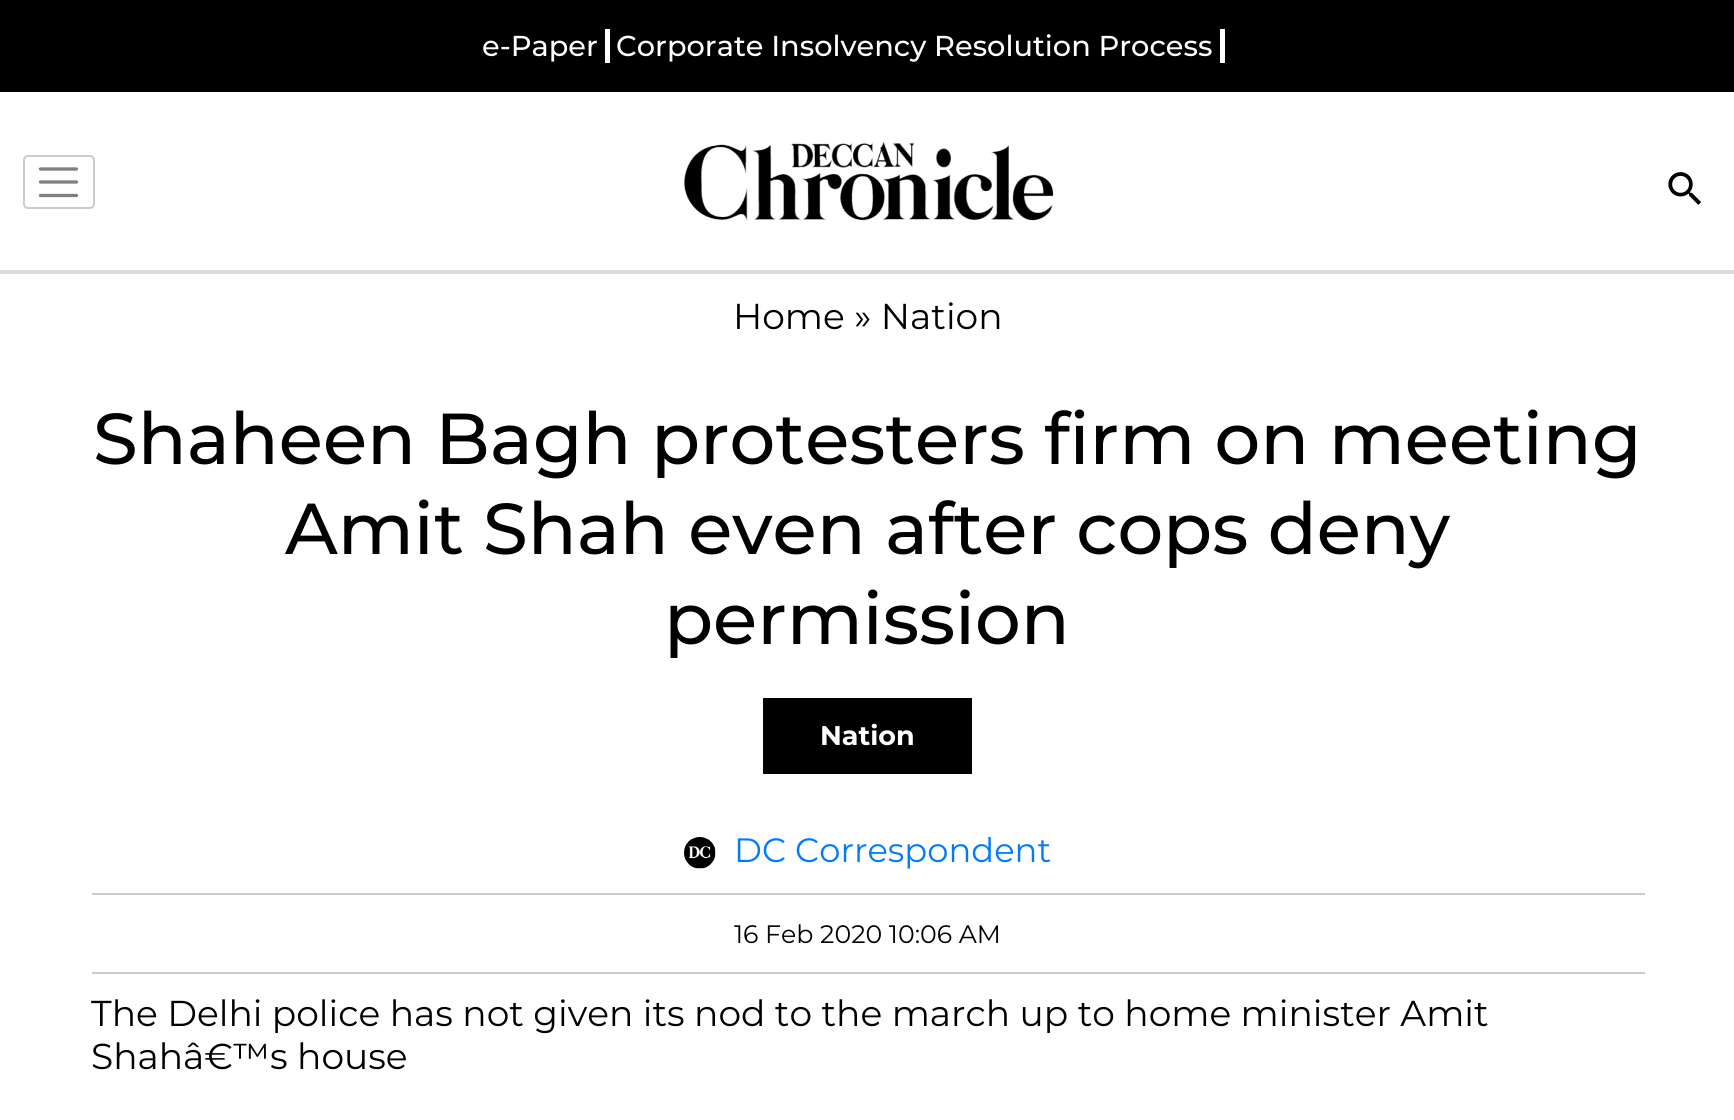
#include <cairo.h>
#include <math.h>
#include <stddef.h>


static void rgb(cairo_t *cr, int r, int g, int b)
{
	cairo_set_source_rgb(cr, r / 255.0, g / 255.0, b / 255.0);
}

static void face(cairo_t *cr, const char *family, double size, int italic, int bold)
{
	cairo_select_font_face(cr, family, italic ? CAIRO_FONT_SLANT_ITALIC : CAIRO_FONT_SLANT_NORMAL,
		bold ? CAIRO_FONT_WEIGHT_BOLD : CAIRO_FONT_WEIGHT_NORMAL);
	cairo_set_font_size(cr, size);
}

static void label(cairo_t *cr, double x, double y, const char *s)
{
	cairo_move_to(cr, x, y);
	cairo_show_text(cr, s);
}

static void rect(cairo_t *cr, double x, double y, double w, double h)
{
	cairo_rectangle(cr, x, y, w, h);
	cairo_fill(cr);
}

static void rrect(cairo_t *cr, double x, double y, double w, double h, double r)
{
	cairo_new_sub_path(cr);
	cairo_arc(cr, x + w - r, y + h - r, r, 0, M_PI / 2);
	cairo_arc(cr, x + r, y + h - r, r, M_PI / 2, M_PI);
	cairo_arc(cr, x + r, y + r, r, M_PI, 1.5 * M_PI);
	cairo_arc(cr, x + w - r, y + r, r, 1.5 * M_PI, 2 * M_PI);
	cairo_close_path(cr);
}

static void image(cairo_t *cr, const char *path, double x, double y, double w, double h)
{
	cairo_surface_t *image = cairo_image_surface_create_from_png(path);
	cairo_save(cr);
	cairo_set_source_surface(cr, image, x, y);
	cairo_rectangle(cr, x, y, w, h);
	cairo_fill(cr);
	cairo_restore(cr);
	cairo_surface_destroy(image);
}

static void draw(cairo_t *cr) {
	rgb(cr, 255, 255, 255);
	cairo_paint(cr);
	rgb(cr, 0, 0, 0);
	rect(cr, 0, 0, 1734, 92);
	face(cr, "Montserrat Medium", 28.8, 0, 0);
	rgb(cr, 255, 255, 255);
	label(cr, 482, 56, "e-Paper");
	rect(cr, 605, 29, 5, 34);
	label(cr, 616, 56, "Corporate Insolvency Resolution Process");
	rect(cr, 1220, 29, 5, 34);
	rgb(cr, 219, 219, 219);
	rect(cr, 0, 270, 1734, 4);
	cairo_new_path(cr);
	cairo_move_to(cr, 40.5, 169);
	cairo_line_to(cr, 76.5, 169);
	cairo_move_to(cr, 40.5, 182);
	cairo_line_to(cr, 76.5, 182);
	cairo_move_to(cr, 40.5, 195.5);
	cairo_line_to(cr, 76.5, 195.5);
	rgb(cr, 128, 128, 128);
	cairo_set_line_width(cr, 3.3);
	cairo_set_line_cap(cr, CAIRO_LINE_CAP_ROUND);
	cairo_stroke(cr);
	rrect(cr, 24, 156, 70, 52, 4);
	rgb(cr, 204, 204, 204);
	cairo_set_line_width(cr, 2);
	cairo_set_line_cap(cr, CAIRO_LINE_CAP_BUTT);
	cairo_stroke(cr);
	image(cr, "image0.png", 684, 142, 370, 79);
	image(cr, "image1.png", 1668, 172, 34, 33);
	face(cr, "Montserrat", 36, 0, 0);
	rgb(cr, 0, 0, 0);
	label(cr, 733, 329, "Home » Nation");
	face(cr, "Montserrat Medium", 72, 0, 0);
	label(cr, 93, 464, "Shaheen Bagh protesters firm on meeting");
	label(cr, 285, 554, "Amit Shah even after cops deny");
	label(cr, 664, 644, "permission");
	rect(cr, 763, 698, 209, 76);
	face(cr, "Montserrat", 27, 0, 1);
	rgb(cr, 255, 255, 255);
	label(cr, 820, 745, "Nation");
	image(cr, "image2.png", 684, 837, 32, 32);
	face(cr, "Montserrat", 33.75, 0, 0);
	rgb(cr, 0, 123, 255);
	label(cr, 734, 862, "DC Correspondent");
	rgb(cr, 204, 204, 204);
	rect(cr, 92, 893, 1553, 2);
	rect(cr, 92, 972, 1553, 2);
	face(cr, "Montserrat", 25.25, 0, 0);
	rgb(cr, 0, 0, 0);
	label(cr, 734, 943, "16 Feb 2020 10:06 AM");
	face(cr, "Montserrat", 36, 0, 0);
	label(cr, 91, 1026, "The Delhi police has not given its nod to the march up to home minister Amit");
	label(cr, 91, 1069, "Shahâ€™s house");
}

int main(void) {
	cairo_surface_t *surface = cairo_image_surface_create(CAIRO_FORMAT_RGB24, 1734, 1120);
	cairo_t *cr = cairo_create(surface);
	cairo_font_options_t *options = cairo_font_options_create();
	cairo_font_options_set_hint_metrics(options, CAIRO_HINT_METRICS_OFF);
	cairo_font_options_set_hint_style(options, CAIRO_HINT_STYLE_NONE);
	cairo_set_font_options(cr, options);
	cairo_set_miter_limit(cr, 4);
	draw(cr);
	cairo_surface_write_to_png(surface, "render.png");
	cairo_font_options_destroy(options);
	cairo_destroy(cr);
	cairo_surface_destroy(surface);
	return 0;
}
